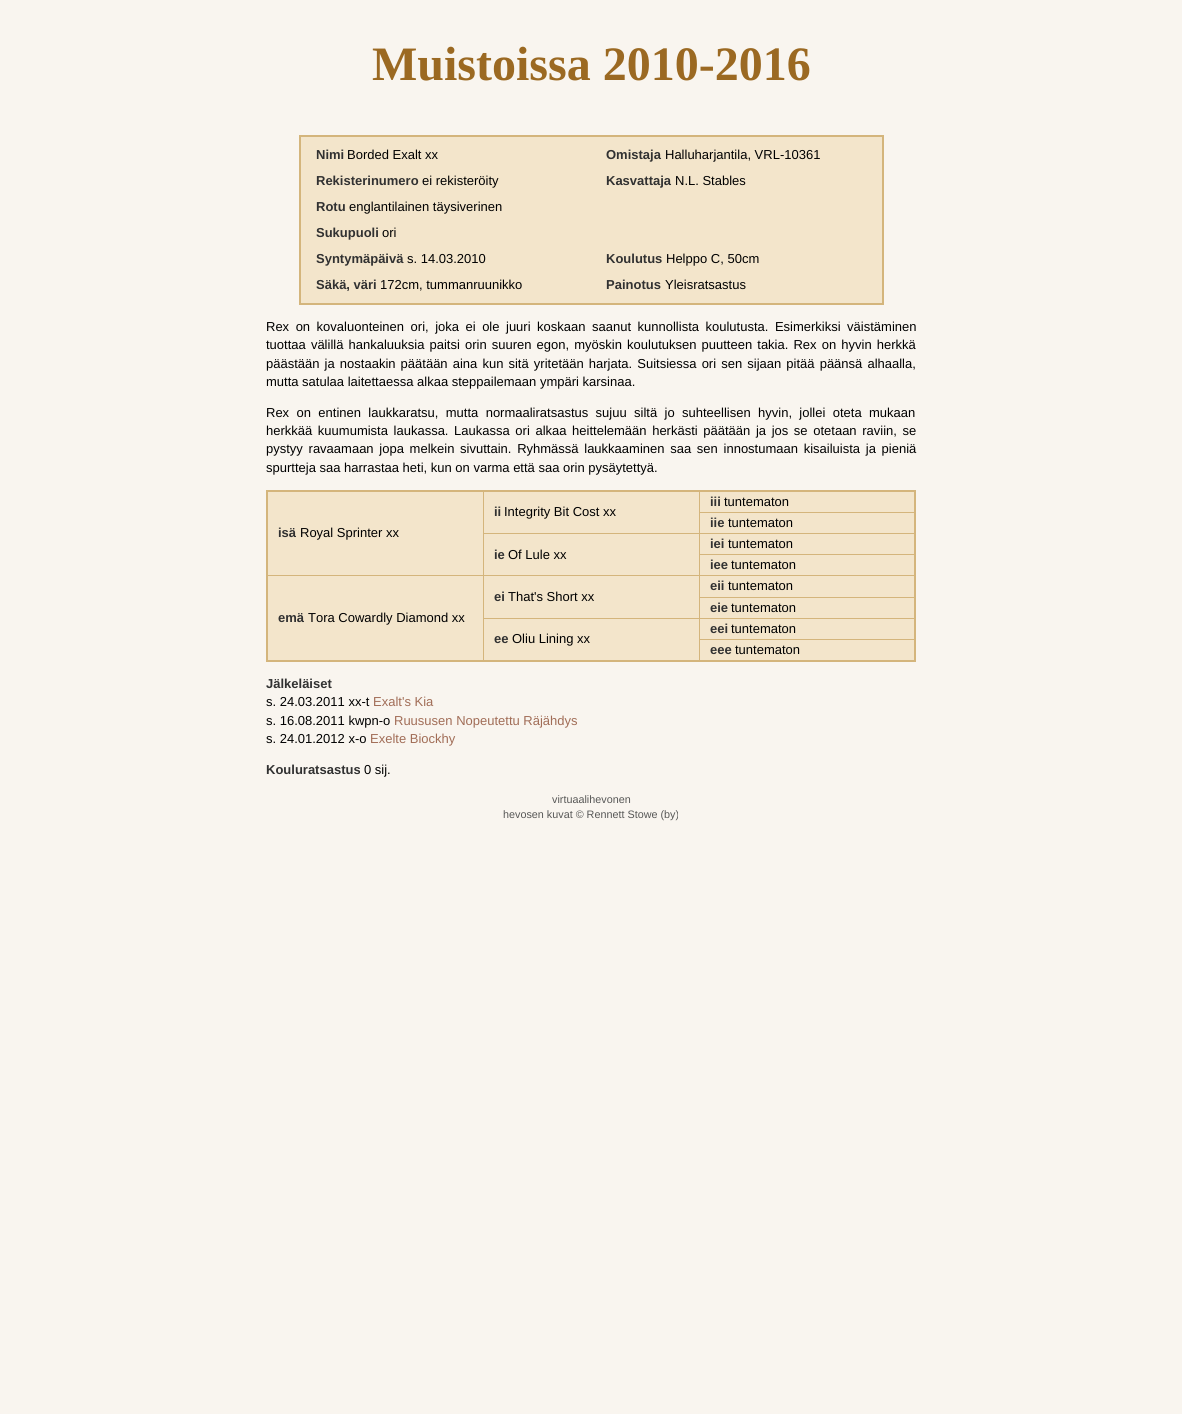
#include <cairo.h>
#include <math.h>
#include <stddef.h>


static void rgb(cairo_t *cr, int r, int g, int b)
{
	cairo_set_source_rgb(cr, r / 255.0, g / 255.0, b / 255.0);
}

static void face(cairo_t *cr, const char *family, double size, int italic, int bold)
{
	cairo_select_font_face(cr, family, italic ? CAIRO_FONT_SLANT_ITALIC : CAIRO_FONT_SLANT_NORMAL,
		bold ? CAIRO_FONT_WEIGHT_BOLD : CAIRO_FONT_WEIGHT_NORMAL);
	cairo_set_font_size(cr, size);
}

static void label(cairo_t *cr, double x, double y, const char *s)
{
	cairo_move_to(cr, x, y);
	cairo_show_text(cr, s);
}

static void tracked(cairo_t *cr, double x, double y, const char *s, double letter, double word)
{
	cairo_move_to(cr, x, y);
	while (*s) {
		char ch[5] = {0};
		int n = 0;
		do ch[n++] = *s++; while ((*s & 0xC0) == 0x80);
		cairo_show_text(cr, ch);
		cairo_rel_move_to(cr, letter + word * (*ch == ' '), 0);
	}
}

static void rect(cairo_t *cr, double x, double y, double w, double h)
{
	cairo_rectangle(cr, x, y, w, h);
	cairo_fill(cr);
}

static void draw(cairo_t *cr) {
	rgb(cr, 249, 245, 239);
	cairo_paint(cr);
	face(cr, "Liberation Serif", 48, 0, 1);
	rgb(cr, 155, 105, 34);
	label(cr, 372, 80, "Muistoissa 2010-2016");
	rgb(cr, 212, 181, 124);
	rect(cr, 299, 135, 585, 2);
	rect(cr, 882, 135, 2, 170);
	rect(cr, 299, 303, 585, 2);
	rect(cr, 299, 135, 2, 170);
	rgb(cr, 243, 229, 203);
	rect(cr, 301, 137, 581, 166);
	face(cr, "Liberation Sans", 13, 0, 1);
	rgb(cr, 49, 49, 49);
	label(cr, 316, 159, "Nimi");
	face(cr, "Liberation Sans", 13, 0, 0);
	rgb(cr, 0, 0, 0);
	label(cr, 347, 159, "Borded Exalt xx");
	face(cr, "Liberation Sans", 13, 0, 1);
	rgb(cr, 49, 49, 49);
	label(cr, 316, 185, "Rekisterinumero");
	face(cr, "Liberation Sans", 13, 0, 0);
	rgb(cr, 0, 0, 0);
	label(cr, 422, 185, "ei rekisteröity");
	face(cr, "Liberation Sans", 13, 0, 1);
	rgb(cr, 49, 49, 49);
	label(cr, 316, 211, "Rotu");
	face(cr, "Liberation Sans", 13, 0, 0);
	rgb(cr, 0, 0, 0);
	label(cr, 349, 211, "englantilainen täysiverinen");
	face(cr, "Liberation Sans", 13, 0, 1);
	rgb(cr, 49, 49, 49);
	label(cr, 316, 237, "Sukupuoli");
	face(cr, "Liberation Sans", 13, 0, 0);
	rgb(cr, 0, 0, 0);
	label(cr, 382, 237, "ori");
	face(cr, "Liberation Sans", 13, 0, 1);
	rgb(cr, 49, 49, 49);
	label(cr, 316, 263, "Syntymäpäivä");
	face(cr, "Liberation Sans", 13, 0, 0);
	rgb(cr, 0, 0, 0);
	label(cr, 407, 263, "s. 14.03.2010");
	face(cr, "Liberation Sans", 13, 0, 1);
	rgb(cr, 49, 49, 49);
	label(cr, 316, 289, "Säkä, väri");
	face(cr, "Liberation Sans", 13, 0, 0);
	rgb(cr, 0, 0, 0);
	label(cr, 380, 289, "172cm, tummanruunikko");
	face(cr, "Liberation Sans", 13, 0, 1);
	rgb(cr, 49, 49, 49);
	label(cr, 606, 159, "Omistaja");
	face(cr, "Liberation Sans", 13, 0, 0);
	rgb(cr, 0, 0, 0);
	label(cr, 665, 159, "Halluharjantila, VRL-10361");
	face(cr, "Liberation Sans", 13, 0, 1);
	rgb(cr, 49, 49, 49);
	label(cr, 606, 185, "Kasvattaja");
	face(cr, "Liberation Sans", 13, 0, 0);
	rgb(cr, 0, 0, 0);
	label(cr, 675, 185, "N.L. Stables");
	face(cr, "Liberation Sans", 13, 0, 1);
	rgb(cr, 49, 49, 49);
	label(cr, 606, 263, "Koulutus");
	face(cr, "Liberation Sans", 13, 0, 0);
	rgb(cr, 0, 0, 0);
	label(cr, 666, 263, "Helppo C, 50cm");
	face(cr, "Liberation Sans", 13, 0, 1);
	rgb(cr, 49, 49, 49);
	label(cr, 606, 289, "Painotus");
	face(cr, "Liberation Sans", 13, 0, 0);
	rgb(cr, 0, 0, 0);
	label(cr, 665, 289, "Yleisratsastus");
	tracked(cr, 266, 331, "Rex on kovaluonteinen ori, joka ei ole juuri koskaan saanut kunnollista koulutusta. Esimerkiksi väistäminen", 0, 2.9);
	tracked(cr, 266, 349, "tuottaa välillä hankaluuksia paitsi orin suuren egon, myöskin koulutuksen puutteen takia. Rex on hyvin herkkä", 0, 1.5);
	tracked(cr, 266, 368, "päästään ja nostaakin päätään aina kun sitä yritetään harjata. Suitsiessa ori sen sijaan pitää päänsä alhaalla,", 0, 1.5);
	label(cr, 266, 386, "mutta satulaa laitettaessa alkaa steppailemaan ympäri karsinaa.");
	tracked(cr, 266, 417, "Rex on entinen laukkaratsu, mutta normaaliratsastus sujuu siltä jo suhteellisen hyvin, jollei oteta mukaan", 0, 3.75);
	tracked(cr, 266, 435, "herkkää kuumumista laukassa. Laukassa ori alkaa heittelemään herkästi päätään ja jos se otetaan raviin, se", 0, 2);
	tracked(cr, 266, 453, "pystyy ravaamaan jopa melkein sivuttain. Ryhmässä laukkaaminen saa sen innostumaan kisailuista ja pieniä", 0, 2.1);
	label(cr, 266, 472, "spurtteja saa harrastaa heti, kun on varma että saa orin pysäytettyä.");
	rgb(cr, 212, 181, 124);
	rect(cr, 699, 512, 217, 1);
	rect(cr, 699, 533, 217, 1);
	rect(cr, 699, 554, 217, 1);
	rect(cr, 699, 575, 217, 1);
	rect(cr, 699, 597, 217, 1);
	rect(cr, 699, 618, 217, 1);
	rect(cr, 699, 639, 217, 1);
	rect(cr, 699, 639, 1, 23);
	rect(cr, 699, 618, 1, 22);
	rect(cr, 483, 618, 217, 1);
	rect(cr, 699, 597, 1, 22);
	rect(cr, 699, 575, 1, 23);
	rect(cr, 483, 575, 217, 1);
	rect(cr, 699, 554, 1, 22);
	rect(cr, 699, 533, 1, 22);
	rect(cr, 483, 533, 217, 1);
	rect(cr, 699, 490, 1, 44);
	rect(cr, 483, 618, 1, 44);
	rect(cr, 483, 575, 1, 44);
	rect(cr, 267, 575, 217, 1);
	rect(cr, 483, 490, 1, 86);
	rect(cr, 266, 490, 650, 2);
	rect(cr, 914, 490, 2, 172);
	rect(cr, 266, 660, 650, 2);
	rect(cr, 266, 490, 2, 172);
	rgb(cr, 243, 229, 203);
	rect(cr, 700, 492, 214, 20);
	face(cr, "Liberation Sans", 13, 0, 1);
	rgb(cr, 49, 49, 49);
	label(cr, 710, 506, "iii");
	face(cr, "Liberation Sans", 13, 0, 0);
	rgb(cr, 0, 0, 0);
	label(cr, 724, 506, "tuntematon");
	rgb(cr, 243, 229, 203);
	rect(cr, 484, 492, 215, 41);
	face(cr, "Liberation Sans", 13, 0, 1);
	rgb(cr, 49, 49, 49);
	label(cr, 494, 516, "ii");
	face(cr, "Liberation Sans", 13, 0, 0);
	rgb(cr, 0, 0, 0);
	label(cr, 504, 516, "Integrity Bit Cost xx");
	rgb(cr, 243, 229, 203);
	rect(cr, 268, 492, 215, 83);
	face(cr, "Liberation Sans", 13, 0, 1);
	rgb(cr, 49, 49, 49);
	label(cr, 278, 537, "isä");
	face(cr, "Liberation Sans", 13, 0, 0);
	rgb(cr, 0, 0, 0);
	label(cr, 300, 537, "Royal Sprinter xx");
	rgb(cr, 243, 229, 203);
	rect(cr, 700, 513, 214, 20);
	face(cr, "Liberation Sans", 13, 0, 1);
	rgb(cr, 49, 49, 49);
	label(cr, 710, 527, "iie");
	face(cr, "Liberation Sans", 13, 0, 0);
	rgb(cr, 0, 0, 0);
	label(cr, 728, 527, "tuntematon");
	rgb(cr, 243, 229, 203);
	rect(cr, 700, 534, 214, 20);
	face(cr, "Liberation Sans", 13, 0, 1);
	rgb(cr, 49, 49, 49);
	label(cr, 710, 548, "iei");
	face(cr, "Liberation Sans", 13, 0, 0);
	rgb(cr, 0, 0, 0);
	label(cr, 728, 548, "tuntematon");
	rgb(cr, 243, 229, 203);
	rect(cr, 484, 534, 215, 41);
	face(cr, "Liberation Sans", 13, 0, 1);
	rgb(cr, 49, 49, 49);
	label(cr, 494, 559, "ie");
	face(cr, "Liberation Sans", 13, 0, 0);
	rgb(cr, 0, 0, 0);
	label(cr, 508, 559, "Of Lule xx");
	rgb(cr, 243, 229, 203);
	rect(cr, 700, 555, 214, 20);
	face(cr, "Liberation Sans", 13, 0, 1);
	rgb(cr, 49, 49, 49);
	label(cr, 710, 569, "iee");
	face(cr, "Liberation Sans", 13, 0, 0);
	rgb(cr, 0, 0, 0);
	label(cr, 731, 569, "tuntematon");
	rgb(cr, 243, 229, 203);
	rect(cr, 700, 576, 214, 21);
	face(cr, "Liberation Sans", 13, 0, 1);
	rgb(cr, 49, 49, 49);
	label(cr, 710, 590, "eii");
	face(cr, "Liberation Sans", 13, 0, 0);
	rgb(cr, 0, 0, 0);
	label(cr, 728, 590, "tuntematon");
	rgb(cr, 243, 229, 203);
	rect(cr, 484, 576, 215, 42);
	face(cr, "Liberation Sans", 13, 0, 1);
	rgb(cr, 49, 49, 49);
	label(cr, 494, 601, "ei");
	face(cr, "Liberation Sans", 13, 0, 0);
	rgb(cr, 0, 0, 0);
	label(cr, 508, 601, "That's Short xx");
	rgb(cr, 243, 229, 203);
	rect(cr, 268, 576, 215, 84);
	face(cr, "Liberation Sans", 13, 0, 1);
	rgb(cr, 49, 49, 49);
	label(cr, 278, 622, "emä");
	face(cr, "Liberation Sans", 13, 0, 0);
	rgb(cr, 0, 0, 0);
	label(cr, 308, 622, "Tora Cowardly Diamond xx");
	rgb(cr, 243, 229, 203);
	rect(cr, 700, 598, 214, 20);
	face(cr, "Liberation Sans", 13, 0, 1);
	rgb(cr, 49, 49, 49);
	label(cr, 710, 612, "eie");
	face(cr, "Liberation Sans", 13, 0, 0);
	rgb(cr, 0, 0, 0);
	label(cr, 731, 612, "tuntematon");
	rgb(cr, 243, 229, 203);
	rect(cr, 700, 619, 214, 20);
	face(cr, "Liberation Sans", 13, 0, 1);
	rgb(cr, 49, 49, 49);
	label(cr, 710, 633, "eei");
	face(cr, "Liberation Sans", 13, 0, 0);
	rgb(cr, 0, 0, 0);
	label(cr, 731, 633, "tuntematon");
	rgb(cr, 243, 229, 203);
	rect(cr, 484, 619, 215, 41);
	face(cr, "Liberation Sans", 13, 0, 1);
	rgb(cr, 49, 49, 49);
	label(cr, 494, 643, "ee");
	face(cr, "Liberation Sans", 13, 0, 0);
	rgb(cr, 0, 0, 0);
	label(cr, 512, 643, "Oliu Lining xx");
	rgb(cr, 243, 229, 203);
	rect(cr, 700, 640, 214, 20);
	face(cr, "Liberation Sans", 13, 0, 1);
	rgb(cr, 49, 49, 49);
	label(cr, 710, 654, "eee");
	face(cr, "Liberation Sans", 13, 0, 0);
	rgb(cr, 0, 0, 0);
	label(cr, 735, 654, "tuntematon");
	face(cr, "Liberation Sans", 13, 0, 1);
	rgb(cr, 49, 49, 49);
	label(cr, 266, 688, "Jälkeläiset");
	face(cr, "Liberation Sans", 13, 0, 0);
	rgb(cr, 0, 0, 0);
	label(cr, 266, 706, "s. 24.03.2011 xx-t");
	rgb(cr, 161, 109, 87);
	label(cr, 373, 706, "Exalt's Kia");
	rgb(cr, 0, 0, 0);
	label(cr, 266, 725, "s. 16.08.2011 kwpn-o");
	rgb(cr, 161, 109, 87);
	label(cr, 394, 725, "Ruususen Nopeutettu Räjähdys");
	rgb(cr, 0, 0, 0);
	label(cr, 266, 743, "s. 24.01.2012 x-o");
	rgb(cr, 161, 109, 87);
	label(cr, 370, 743, "Exelte Biockhy");
	face(cr, "Liberation Sans", 13, 0, 1);
	rgb(cr, 49, 49, 49);
	label(cr, 266, 774, "Kouluratsastus");
	face(cr, "Liberation Sans", 13, 0, 0);
	rgb(cr, 0, 0, 0);
	label(cr, 364, 774, "0 sij.");
	face(cr, "Liberation Sans", 10.8, 0, 0);
	rgb(cr, 87, 87, 86);
	label(cr, 552, 803, "virtuaalihevonen");
	label(cr, 503, 818, "hevosen kuvat © Rennett Stowe (by)");
}

int main(void) {
	cairo_surface_t *surface = cairo_image_surface_create(CAIRO_FORMAT_RGB24, 1182, 1414);
	cairo_t *cr = cairo_create(surface);
	cairo_font_options_t *options = cairo_font_options_create();
	cairo_font_options_set_hint_metrics(options, CAIRO_HINT_METRICS_OFF);
	cairo_font_options_set_hint_style(options, CAIRO_HINT_STYLE_NONE);
	cairo_set_font_options(cr, options);
	cairo_set_miter_limit(cr, 4);
	draw(cr);
	cairo_surface_write_to_png(surface, "render.png");
	cairo_font_options_destroy(options);
	cairo_destroy(cr);
	cairo_surface_destroy(surface);
	return 0;
}
